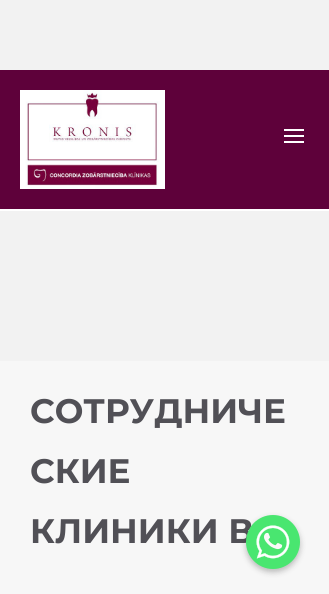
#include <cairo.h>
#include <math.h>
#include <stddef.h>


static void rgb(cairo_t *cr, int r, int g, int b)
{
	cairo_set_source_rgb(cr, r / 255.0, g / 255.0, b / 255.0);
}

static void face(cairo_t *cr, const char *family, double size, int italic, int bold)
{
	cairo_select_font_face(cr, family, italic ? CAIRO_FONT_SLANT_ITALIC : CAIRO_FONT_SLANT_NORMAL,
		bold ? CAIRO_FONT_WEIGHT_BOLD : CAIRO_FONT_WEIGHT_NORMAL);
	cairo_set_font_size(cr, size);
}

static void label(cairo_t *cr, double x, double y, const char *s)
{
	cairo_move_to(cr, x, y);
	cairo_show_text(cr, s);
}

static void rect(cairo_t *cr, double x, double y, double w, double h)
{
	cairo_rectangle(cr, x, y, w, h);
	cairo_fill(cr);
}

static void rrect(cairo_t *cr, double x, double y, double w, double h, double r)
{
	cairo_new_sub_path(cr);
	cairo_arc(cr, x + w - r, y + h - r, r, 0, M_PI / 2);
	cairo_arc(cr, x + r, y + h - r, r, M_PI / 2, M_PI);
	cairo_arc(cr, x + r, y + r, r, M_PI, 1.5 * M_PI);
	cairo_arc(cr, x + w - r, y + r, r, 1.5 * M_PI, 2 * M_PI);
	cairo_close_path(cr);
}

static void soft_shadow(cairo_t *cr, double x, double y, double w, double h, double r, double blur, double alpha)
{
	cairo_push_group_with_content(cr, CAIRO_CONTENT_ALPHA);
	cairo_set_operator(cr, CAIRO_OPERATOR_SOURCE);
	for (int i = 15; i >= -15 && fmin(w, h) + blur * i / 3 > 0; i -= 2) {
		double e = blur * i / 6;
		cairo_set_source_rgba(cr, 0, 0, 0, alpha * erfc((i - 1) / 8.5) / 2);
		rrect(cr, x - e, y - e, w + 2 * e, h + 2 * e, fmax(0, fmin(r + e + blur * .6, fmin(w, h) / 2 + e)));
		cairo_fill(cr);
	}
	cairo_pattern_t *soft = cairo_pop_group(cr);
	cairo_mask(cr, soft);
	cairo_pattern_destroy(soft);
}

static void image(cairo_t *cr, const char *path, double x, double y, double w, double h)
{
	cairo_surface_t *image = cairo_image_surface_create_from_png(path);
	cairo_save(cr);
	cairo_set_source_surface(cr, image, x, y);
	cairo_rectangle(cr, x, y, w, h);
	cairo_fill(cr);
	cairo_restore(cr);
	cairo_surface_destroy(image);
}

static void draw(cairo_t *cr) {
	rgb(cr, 242, 242, 242);
	cairo_paint(cr);
	rgb(cr, 94, 1, 58);
	rect(cr, 0, 70, 329, 139);
	rgb(cr, 255, 255, 255);
	rect(cr, 0, 209, 329, 2);
	image(cr, "image0.png", 20, 90, 145, 99);
	rect(cr, 284, 135, 20, 2);
	rect(cr, 284, 129, 20, 2);
	rect(cr, 284, 141, 20, 2);
	rgb(cr, 247, 247, 247);
	rect(cr, 0, 361, 329, 233);
	face(cr, "Montserrat", 34, 0, 1);
	rgb(cr, 81, 80, 86);
	label(cr, 30, 423, "СОТРУДНИЧЕ");
	label(cr, 30, 483, "СКИЕ");
	label(cr, 30, 543, "КЛИНИКИ В");
	rgb(cr, 0, 0, 0);
	soft_shadow(cr, 246, 518, 54, 54, 27, 3, 0.25);
	image(cr, "image1.png", 246, 515, 54, 54);
}

int main(void) {
	cairo_surface_t *surface = cairo_image_surface_create(CAIRO_FORMAT_RGB24, 329, 594);
	cairo_t *cr = cairo_create(surface);
	cairo_font_options_t *options = cairo_font_options_create();
	cairo_font_options_set_hint_metrics(options, CAIRO_HINT_METRICS_OFF);
	cairo_font_options_set_hint_style(options, CAIRO_HINT_STYLE_NONE);
	cairo_set_font_options(cr, options);
	cairo_set_miter_limit(cr, 4);
	draw(cr);
	cairo_surface_write_to_png(surface, "render.png");
	cairo_font_options_destroy(options);
	cairo_destroy(cr);
	cairo_surface_destroy(surface);
	return 0;
}
